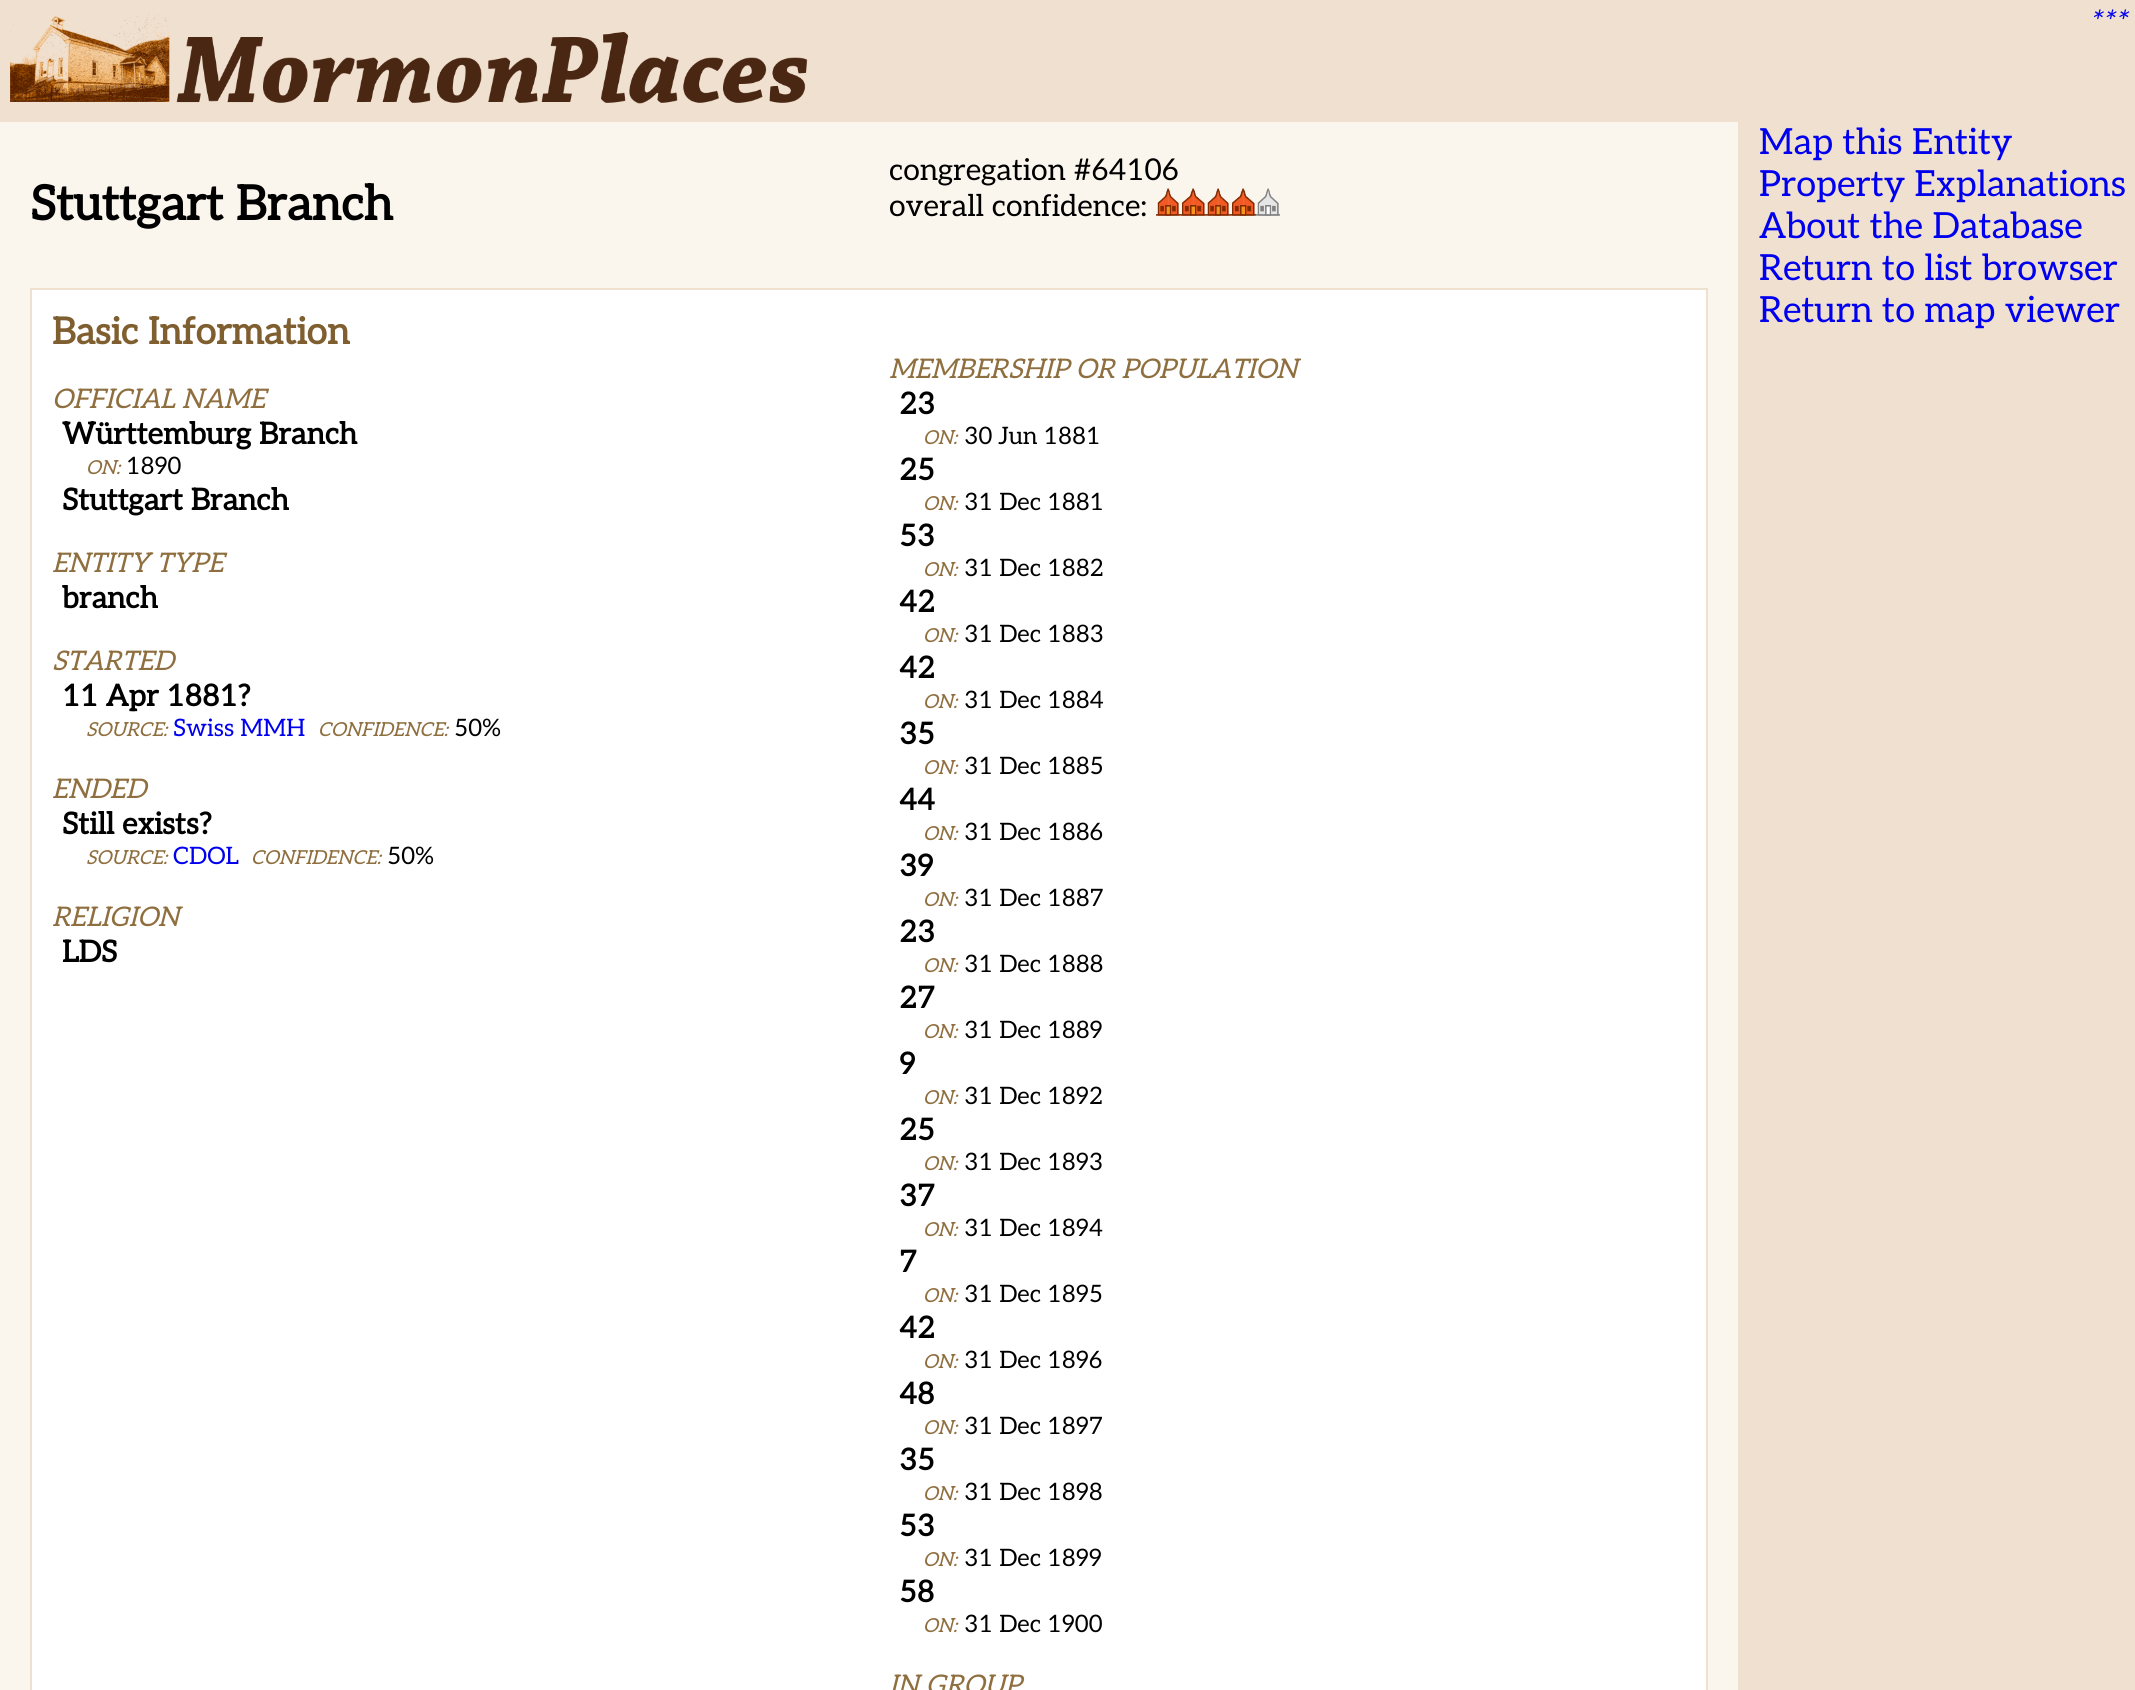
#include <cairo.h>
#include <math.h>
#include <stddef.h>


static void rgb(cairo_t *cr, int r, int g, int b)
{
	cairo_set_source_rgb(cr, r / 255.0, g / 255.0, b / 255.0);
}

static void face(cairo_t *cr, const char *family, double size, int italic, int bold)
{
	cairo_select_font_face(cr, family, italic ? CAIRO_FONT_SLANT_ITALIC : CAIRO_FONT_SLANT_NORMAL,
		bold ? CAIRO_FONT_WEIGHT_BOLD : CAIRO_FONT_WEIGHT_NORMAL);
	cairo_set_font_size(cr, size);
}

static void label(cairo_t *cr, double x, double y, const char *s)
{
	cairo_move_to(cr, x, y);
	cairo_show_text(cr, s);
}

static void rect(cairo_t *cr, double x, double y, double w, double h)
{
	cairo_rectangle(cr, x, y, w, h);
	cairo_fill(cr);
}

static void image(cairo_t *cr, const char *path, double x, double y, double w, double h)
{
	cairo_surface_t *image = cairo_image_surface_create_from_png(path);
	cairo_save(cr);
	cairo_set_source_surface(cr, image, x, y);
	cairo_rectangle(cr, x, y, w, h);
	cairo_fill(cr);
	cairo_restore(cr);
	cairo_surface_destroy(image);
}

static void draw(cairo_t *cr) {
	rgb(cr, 250, 245, 237);
	cairo_paint(cr);
	rgb(cr, 240, 224, 208);
	rect(cr, 0, 0, 2135, 122);
	image(cr, "image0.png", 10, 13, 798, 91);
	face(cr, "Aleo", 30, 1, 0);
	rgb(cr, 0, 0, 238);
	label(cr, 2088, 32, "***");
	face(cr, "Aleo", 48, 0, 1);
	rgb(cr, 0, 0, 0);
	label(cr, 30, 220, "Stuttgart Branch");
	face(cr, "Aleo", 30, 0, 0);
	label(cr, 889, 180, "congregation #64106");
	label(cr, 889, 216, "overall confidence:");
	image(cr, "image1.png", 1156, 188, 24, 28);
	image(cr, "image2.png", 1180, 188, 26, 28);
	image(cr, "image3.png", 1206, 188, 24, 28);
	image(cr, "image2.png", 1230, 188, 26, 28);
	image(cr, "image4.png", 1256, 188, 24, 28);
	rgb(cr, 255, 255, 255);
	cairo_rectangle(cr, 31, 289, 1676, 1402);
	cairo_fill_preserve(cr);
	rgb(cr, 240, 224, 208);
	cairo_stroke(cr);
	face(cr, "Aleo", 37, 0, 1);
	rgb(cr, 127, 95, 47);
	label(cr, 52, 344, "Basic Information");
	face(cr, "Aleo", 27, 1, 0);
	rgb(cr, 143, 111, 63);
	label(cr, 52, 408, "OFFICIAL NAME");
	face(cr, "Aleo", 30, 0, 1);
	rgb(cr, 0, 0, 0);
	label(cr, 62, 444, "Württemburg Branch");
	face(cr, "Aleo", 19.25, 1, 0);
	rgb(cr, 143, 111, 63);
	label(cr, 86, 474, "ON:");
	face(cr, "Aleo", 24, 0, 0);
	rgb(cr, 0, 0, 0);
	label(cr, 126, 474, "1890");
	face(cr, "Aleo", 30, 0, 1);
	label(cr, 62, 510, "Stuttgart Branch");
	face(cr, "Aleo", 27, 1, 0);
	rgb(cr, 143, 111, 63);
	label(cr, 889, 378, "MEMBERSHIP OR POPULATION");
	face(cr, "Aleo", 30, 0, 1);
	rgb(cr, 0, 0, 0);
	label(cr, 899, 414, "23");
	face(cr, "Aleo", 19.25, 1, 0);
	rgb(cr, 143, 111, 63);
	label(cr, 923, 444, "ON:");
	face(cr, "Aleo", 24, 0, 0);
	rgb(cr, 0, 0, 0);
	label(cr, 964, 444, "30 Jun 1881");
	face(cr, "Aleo", 30, 0, 1);
	label(cr, 899, 480, "25");
	face(cr, "Aleo", 19.25, 1, 0);
	rgb(cr, 143, 111, 63);
	label(cr, 923, 510, "ON:");
	face(cr, "Aleo", 24, 0, 0);
	rgb(cr, 0, 0, 0);
	label(cr, 964, 510, "31 Dec 1881");
	face(cr, "Aleo", 30, 0, 1);
	label(cr, 899, 546, "53");
	face(cr, "Aleo", 19.25, 1, 0);
	rgb(cr, 143, 111, 63);
	label(cr, 923, 576, "ON:");
	face(cr, "Aleo", 24, 0, 0);
	rgb(cr, 0, 0, 0);
	label(cr, 964, 576, "31 Dec 1882");
	face(cr, "Aleo", 30, 0, 1);
	label(cr, 899, 612, "42");
	face(cr, "Aleo", 19.25, 1, 0);
	rgb(cr, 143, 111, 63);
	label(cr, 923, 642, "ON:");
	face(cr, "Aleo", 24, 0, 0);
	rgb(cr, 0, 0, 0);
	label(cr, 964, 642, "31 Dec 1883");
	face(cr, "Aleo", 30, 0, 1);
	label(cr, 899, 678, "42");
	face(cr, "Aleo", 19.25, 1, 0);
	rgb(cr, 143, 111, 63);
	label(cr, 923, 708, "ON:");
	face(cr, "Aleo", 24, 0, 0);
	rgb(cr, 0, 0, 0);
	label(cr, 964, 708, "31 Dec 1884");
	face(cr, "Aleo", 30, 0, 1);
	label(cr, 899, 744, "35");
	face(cr, "Aleo", 19.25, 1, 0);
	rgb(cr, 143, 111, 63);
	label(cr, 923, 774, "ON:");
	face(cr, "Aleo", 24, 0, 0);
	rgb(cr, 0, 0, 0);
	label(cr, 964, 774, "31 Dec 1885");
	face(cr, "Aleo", 30, 0, 1);
	label(cr, 899, 810, "44");
	face(cr, "Aleo", 19.25, 1, 0);
	rgb(cr, 143, 111, 63);
	label(cr, 923, 840, "ON:");
	face(cr, "Aleo", 24, 0, 0);
	rgb(cr, 0, 0, 0);
	label(cr, 964, 840, "31 Dec 1886");
	face(cr, "Aleo", 30, 0, 1);
	label(cr, 899, 876, "39");
	face(cr, "Aleo", 19.25, 1, 0);
	rgb(cr, 143, 111, 63);
	label(cr, 923, 906, "ON:");
	face(cr, "Aleo", 24, 0, 0);
	rgb(cr, 0, 0, 0);
	label(cr, 964, 906, "31 Dec 1887");
	face(cr, "Aleo", 30, 0, 1);
	label(cr, 899, 942, "23");
	face(cr, "Aleo", 19.25, 1, 0);
	rgb(cr, 143, 111, 63);
	label(cr, 923, 972, "ON:");
	face(cr, "Aleo", 24, 0, 0);
	rgb(cr, 0, 0, 0);
	label(cr, 964, 972, "31 Dec 1888");
	face(cr, "Aleo", 30, 0, 1);
	label(cr, 899, 1008, "27");
	face(cr, "Aleo", 19.25, 1, 0);
	rgb(cr, 143, 111, 63);
	label(cr, 923, 1038, "ON:");
	face(cr, "Aleo", 24, 0, 0);
	rgb(cr, 0, 0, 0);
	label(cr, 964, 1038, "31 Dec 1889");
	face(cr, "Aleo", 30, 0, 1);
	label(cr, 899, 1074, "9");
	face(cr, "Aleo", 19.25, 1, 0);
	rgb(cr, 143, 111, 63);
	label(cr, 923, 1104, "ON:");
	face(cr, "Aleo", 24, 0, 0);
	rgb(cr, 0, 0, 0);
	label(cr, 964, 1104, "31 Dec 1892");
	face(cr, "Aleo", 30, 0, 1);
	label(cr, 899, 1140, "25");
	face(cr, "Aleo", 19.25, 1, 0);
	rgb(cr, 143, 111, 63);
	label(cr, 923, 1170, "ON:");
	face(cr, "Aleo", 24, 0, 0);
	rgb(cr, 0, 0, 0);
	label(cr, 964, 1170, "31 Dec 1893");
	face(cr, "Aleo", 30, 0, 1);
	label(cr, 899, 1206, "37");
	face(cr, "Aleo", 19.25, 1, 0);
	rgb(cr, 143, 111, 63);
	label(cr, 923, 1236, "ON:");
	face(cr, "Aleo", 24, 0, 0);
	rgb(cr, 0, 0, 0);
	label(cr, 964, 1236, "31 Dec 1894");
	face(cr, "Aleo", 30, 0, 1);
	label(cr, 899, 1272, "7");
	face(cr, "Aleo", 19.25, 1, 0);
	rgb(cr, 143, 111, 63);
	label(cr, 923, 1302, "ON:");
	face(cr, "Aleo", 24, 0, 0);
	rgb(cr, 0, 0, 0);
	label(cr, 964, 1302, "31 Dec 1895");
	face(cr, "Aleo", 30, 0, 1);
	label(cr, 899, 1338, "42");
	face(cr, "Aleo", 19.25, 1, 0);
	rgb(cr, 143, 111, 63);
	label(cr, 923, 1368, "ON:");
	face(cr, "Aleo", 24, 0, 0);
	rgb(cr, 0, 0, 0);
	label(cr, 964, 1368, "31 Dec 1896");
	face(cr, "Aleo", 30, 0, 1);
	label(cr, 899, 1404, "48");
	face(cr, "Aleo", 19.25, 1, 0);
	rgb(cr, 143, 111, 63);
	label(cr, 923, 1434, "ON:");
	face(cr, "Aleo", 24, 0, 0);
	rgb(cr, 0, 0, 0);
	label(cr, 964, 1434, "31 Dec 1897");
	face(cr, "Aleo", 30, 0, 1);
	label(cr, 899, 1470, "35");
	face(cr, "Aleo", 19.25, 1, 0);
	rgb(cr, 143, 111, 63);
	label(cr, 923, 1500, "ON:");
	face(cr, "Aleo", 24, 0, 0);
	rgb(cr, 0, 0, 0);
	label(cr, 964, 1500, "31 Dec 1898");
	face(cr, "Aleo", 30, 0, 1);
	label(cr, 899, 1536, "53");
	face(cr, "Aleo", 19.25, 1, 0);
	rgb(cr, 143, 111, 63);
	label(cr, 923, 1566, "ON:");
	face(cr, "Aleo", 24, 0, 0);
	rgb(cr, 0, 0, 0);
	label(cr, 964, 1566, "31 Dec 1899");
	face(cr, "Aleo", 30, 0, 1);
	label(cr, 899, 1602, "58");
	face(cr, "Aleo", 19.25, 1, 0);
	rgb(cr, 143, 111, 63);
	label(cr, 923, 1632, "ON:");
	face(cr, "Aleo", 24, 0, 0);
	rgb(cr, 0, 0, 0);
	label(cr, 964, 1632, "31 Dec 1900");
	face(cr, "Aleo", 27, 1, 0);
	rgb(cr, 143, 111, 63);
	label(cr, 52, 572, "ENTITY TYPE");
	face(cr, "Aleo", 30, 0, 1);
	rgb(cr, 0, 0, 0);
	label(cr, 62, 608, "branch");
	face(cr, "Aleo", 27, 1, 0);
	rgb(cr, 143, 111, 63);
	label(cr, 52, 670, "STARTED");
	face(cr, "Aleo", 30, 0, 1);
	rgb(cr, 0, 0, 0);
	label(cr, 62, 706, "11 Apr 1881?");
	face(cr, "Aleo", 19.25, 1, 0);
	rgb(cr, 143, 111, 63);
	label(cr, 86, 736, "SOURCE:");
	face(cr, "Aleo", 24, 0, 0);
	rgb(cr, 0, 0, 238);
	label(cr, 173, 736, "Swiss MMH");
	face(cr, "Aleo", 19.25, 1, 0);
	rgb(cr, 143, 111, 63);
	label(cr, 318, 736, "CONFIDENCE:");
	face(cr, "Aleo", 24, 0, 0);
	rgb(cr, 0, 0, 0);
	label(cr, 454, 736, "50%");
	face(cr, "Aleo", 27, 1, 0);
	rgb(cr, 143, 111, 63);
	label(cr, 52, 798, "ENDED");
	face(cr, "Aleo", 30, 0, 1);
	rgb(cr, 0, 0, 0);
	label(cr, 62, 834, "Still exists?");
	face(cr, "Aleo", 19.25, 1, 0);
	rgb(cr, 143, 111, 63);
	label(cr, 86, 864, "SOURCE:");
	face(cr, "Aleo", 24, 0, 0);
	rgb(cr, 0, 0, 238);
	label(cr, 173, 864, "CDOL");
	face(cr, "Aleo", 19.25, 1, 0);
	rgb(cr, 143, 111, 63);
	label(cr, 251, 864, "CONFIDENCE:");
	face(cr, "Aleo", 24, 0, 0);
	rgb(cr, 0, 0, 0);
	label(cr, 387, 864, "50%");
	face(cr, "Aleo", 27, 1, 0);
	rgb(cr, 143, 111, 63);
	label(cr, 52, 926, "RELIGION");
	face(cr, "Aleo", 30, 0, 1);
	rgb(cr, 0, 0, 0);
	label(cr, 62, 962, "LDS");
	face(cr, "Aleo", 27, 1, 0);
	rgb(cr, 143, 111, 63);
	label(cr, 889, 1694, "IN GROUP");
	rgb(cr, 240, 224, 208);
	rect(cr, 1738, 122, 397, 1568);
	face(cr, "Aleo", 36, 0, 0);
	rgb(cr, 0, 0, 238);
	label(cr, 1759, 154, "Map this Entity");
	label(cr, 1759, 196, "Property Explanations");
	label(cr, 1759, 238, "About the Database");
	label(cr, 1759, 280, "Return to list browser");
	label(cr, 1759, 322, "Return to map viewer");
}

int main(void) {
	cairo_surface_t *surface = cairo_image_surface_create(CAIRO_FORMAT_RGB24, 2135, 1690);
	cairo_t *cr = cairo_create(surface);
	cairo_font_options_t *options = cairo_font_options_create();
	cairo_font_options_set_hint_metrics(options, CAIRO_HINT_METRICS_OFF);
	cairo_font_options_set_hint_style(options, CAIRO_HINT_STYLE_NONE);
	cairo_set_font_options(cr, options);
	cairo_set_miter_limit(cr, 4);
	draw(cr);
	cairo_surface_write_to_png(surface, "render.png");
	cairo_font_options_destroy(options);
	cairo_destroy(cr);
	cairo_surface_destroy(surface);
	return 0;
}
